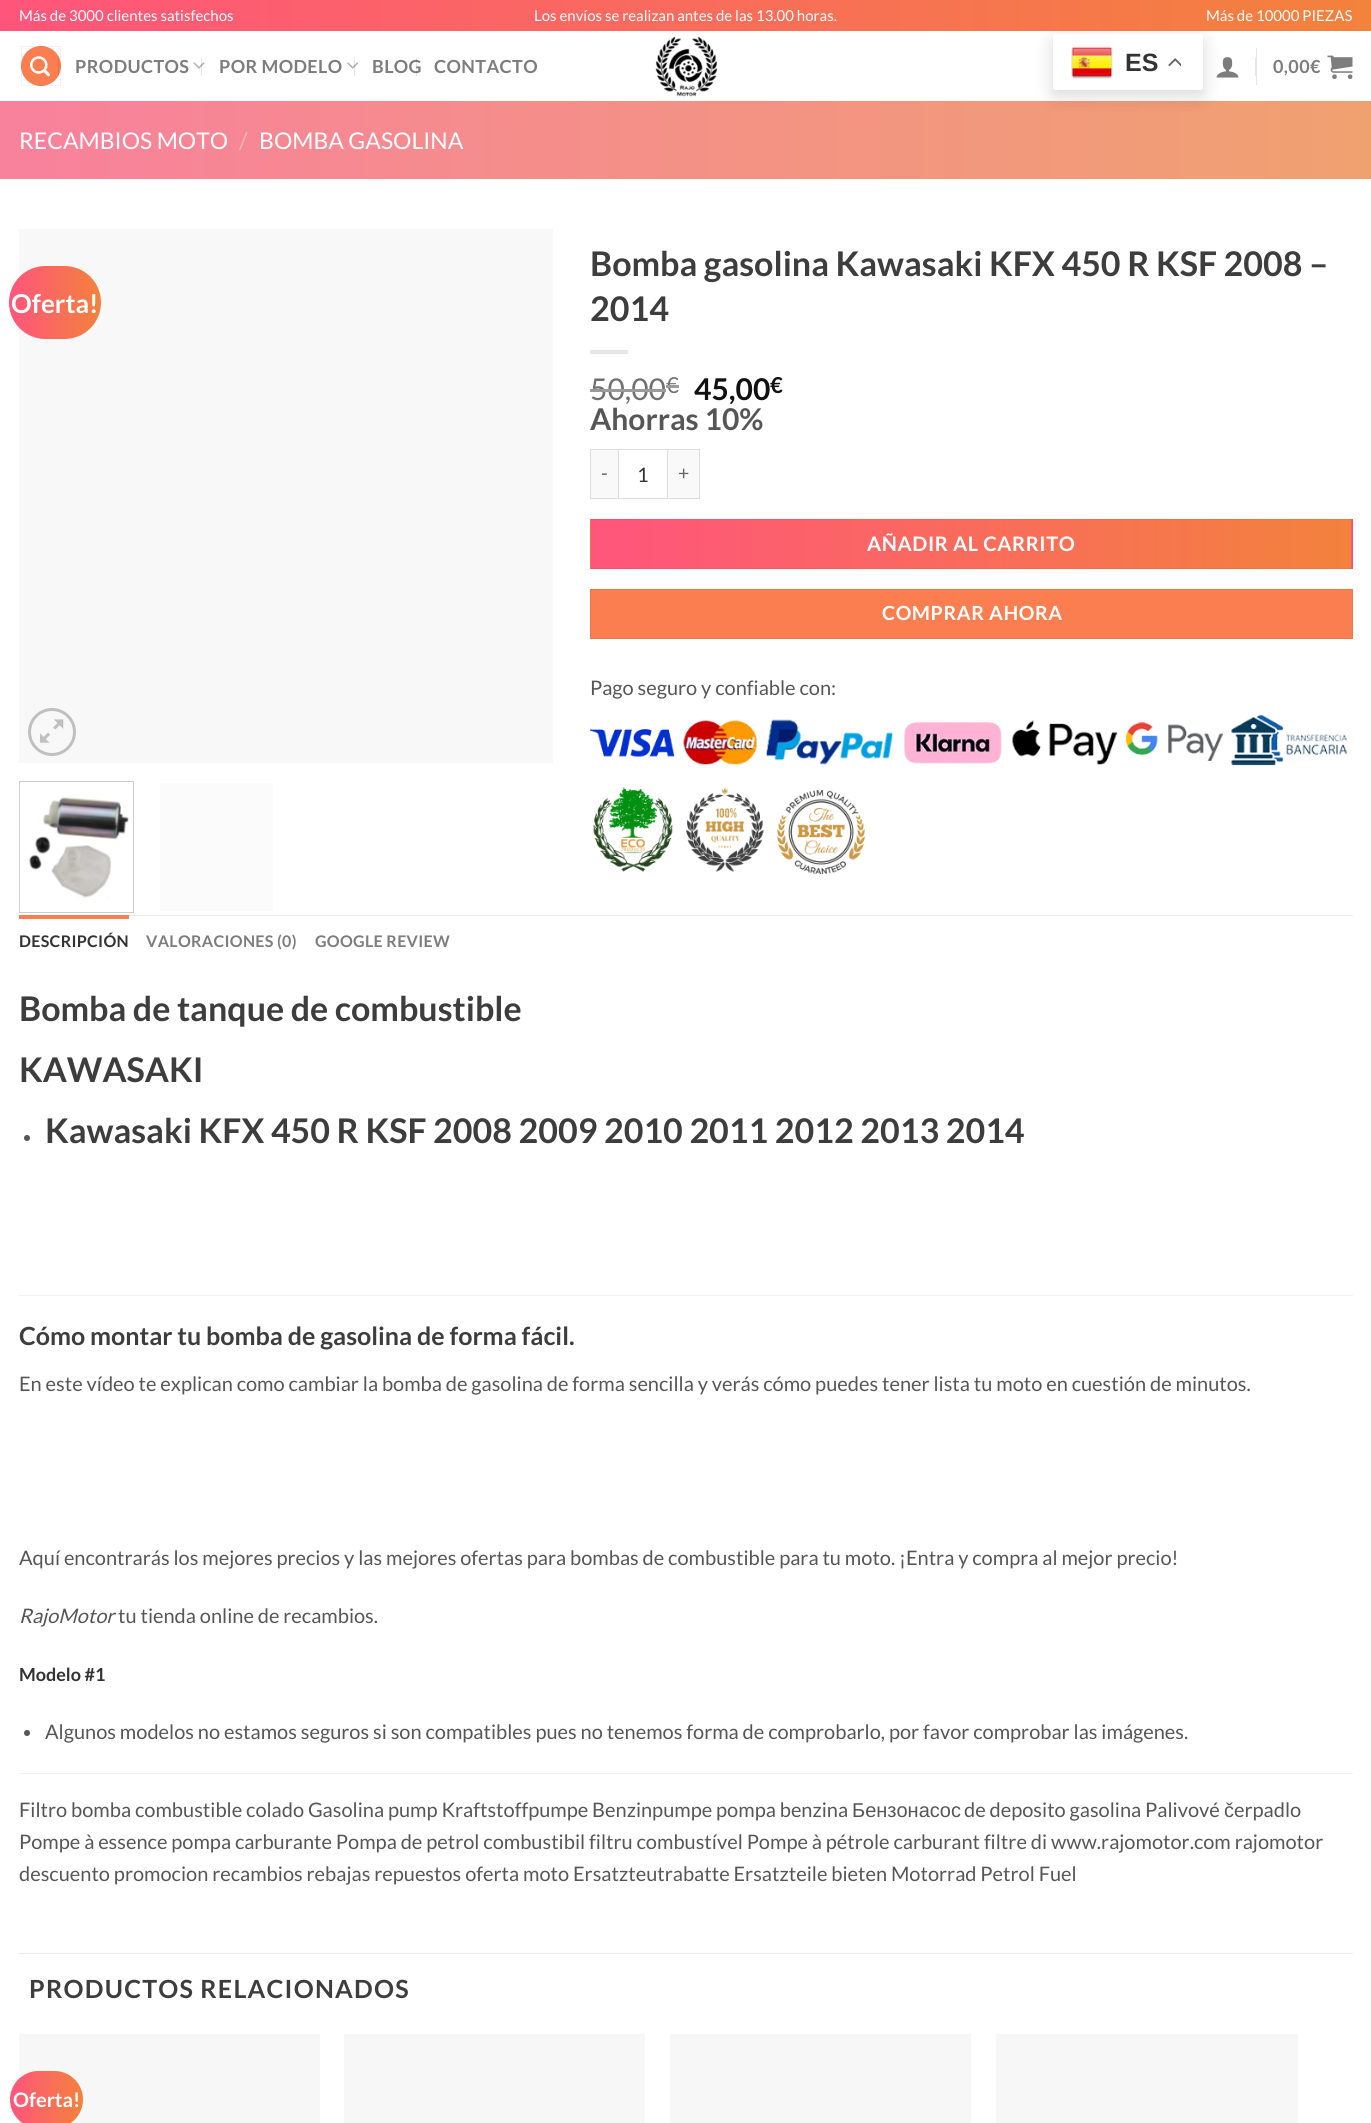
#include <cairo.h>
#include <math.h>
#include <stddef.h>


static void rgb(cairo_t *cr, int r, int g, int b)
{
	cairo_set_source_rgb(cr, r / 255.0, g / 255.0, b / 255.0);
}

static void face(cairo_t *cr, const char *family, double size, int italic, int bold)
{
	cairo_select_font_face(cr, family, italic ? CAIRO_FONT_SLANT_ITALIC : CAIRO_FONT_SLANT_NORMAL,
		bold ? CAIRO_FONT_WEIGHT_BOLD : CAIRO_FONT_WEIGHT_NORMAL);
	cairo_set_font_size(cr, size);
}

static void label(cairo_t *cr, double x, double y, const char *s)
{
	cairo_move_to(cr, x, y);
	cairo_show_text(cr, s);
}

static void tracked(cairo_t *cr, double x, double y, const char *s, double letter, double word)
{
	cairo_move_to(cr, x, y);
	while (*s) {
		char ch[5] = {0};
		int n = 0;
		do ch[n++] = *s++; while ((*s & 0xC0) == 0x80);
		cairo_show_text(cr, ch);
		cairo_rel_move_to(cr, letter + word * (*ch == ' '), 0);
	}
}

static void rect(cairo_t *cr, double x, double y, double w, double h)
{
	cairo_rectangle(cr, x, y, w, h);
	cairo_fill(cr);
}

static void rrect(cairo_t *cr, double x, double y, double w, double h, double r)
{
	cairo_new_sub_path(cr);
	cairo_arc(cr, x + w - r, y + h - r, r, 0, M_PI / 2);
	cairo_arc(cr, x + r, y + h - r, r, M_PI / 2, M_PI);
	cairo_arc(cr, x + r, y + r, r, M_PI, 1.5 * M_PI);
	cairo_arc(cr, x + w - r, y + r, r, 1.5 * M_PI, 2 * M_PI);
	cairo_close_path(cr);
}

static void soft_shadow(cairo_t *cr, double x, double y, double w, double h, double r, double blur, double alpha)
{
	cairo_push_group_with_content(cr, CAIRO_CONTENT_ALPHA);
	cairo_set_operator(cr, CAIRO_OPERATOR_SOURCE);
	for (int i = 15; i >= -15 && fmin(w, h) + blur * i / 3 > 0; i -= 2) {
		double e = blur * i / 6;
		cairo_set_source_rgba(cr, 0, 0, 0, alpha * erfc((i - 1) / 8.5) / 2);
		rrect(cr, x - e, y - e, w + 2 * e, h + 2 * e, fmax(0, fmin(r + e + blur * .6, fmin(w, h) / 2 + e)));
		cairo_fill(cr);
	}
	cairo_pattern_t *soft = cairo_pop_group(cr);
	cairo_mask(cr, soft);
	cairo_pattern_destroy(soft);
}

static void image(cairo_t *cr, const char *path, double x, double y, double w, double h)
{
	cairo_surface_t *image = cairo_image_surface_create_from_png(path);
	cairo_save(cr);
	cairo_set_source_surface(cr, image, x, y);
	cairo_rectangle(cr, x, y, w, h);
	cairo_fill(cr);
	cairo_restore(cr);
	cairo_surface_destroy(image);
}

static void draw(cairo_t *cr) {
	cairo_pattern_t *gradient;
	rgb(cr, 255, 255, 255);
	cairo_paint(cr);
	gradient = cairo_pattern_create_linear(0, 140, 1371, 140);
	cairo_pattern_add_color_stop_rgba(gradient, 0, 0.973, 0.506, 0.612, 1);
	cairo_pattern_add_color_stop_rgba(gradient, 1, 0.941, 0.631, 0.439, 1);
	cairo_set_source(cr, gradient);
	cairo_pattern_destroy(gradient);
	rect(cr, 0, 101, 1371, 78);
	rgb(cr, 0, 0, 0);
	soft_shadow(cr, 1053, 40, 150, 56, 2.5, 9.5, 0.15);
	gradient = cairo_pattern_create_linear(0, 16, 1371, 16);
	cairo_pattern_add_color_stop_rgba(gradient, 0, 1, 0.333, 0.486, 1);
	cairo_pattern_add_color_stop_rgba(gradient, 1, 0.953, 0.51, 0.235, 1);
	cairo_set_source(cr, gradient);
	cairo_pattern_destroy(gradient);
	rect(cr, 0, 0, 1371, 31);
	face(cr, "Lato", 15, 0, 0);
	rgb(cr, 255, 255, 255);
	label(cr, 19, 21, "Más de 3000 clientes satisfechos");
	label(cr, 534, 21, "Los envíos se realizan antes de las 13.00 horas.");
	label(cr, 1206, 21, "Más de 10000 PIEZAS");
	rgb(cr, 250, 126, 80);
	cairo_new_path(cr);
	cairo_arc(cr, 41, 66, 20, 0, 2 * M_PI);
	cairo_fill(cr);
	cairo_rectangle(cr, 21.5, 46.5, 39, 39);
	cairo_set_source_rgba(cr, 0, 0, 0, 0.05);
	cairo_set_line_width(cr, 1);
	cairo_stroke(cr);
	image(cr, "image0.png", 30, 56, 20, 21);
	cairo_set_source_rgba(cr, 0, 0, 0, 0.1);
	rect(cr, 58, 58, 1, 18);
	face(cr, "Lato", 18, 0, 1);
	rgb(cr, 125, 125, 125);
	tracked(cr, 75, 73, "PRODUCTOS", 0.4, 0);
	image(cr, "image1.png", 193, 62, 12, 7);
	cairo_set_source_rgba(cr, 0, 0, 0, 0.1);
	rect(cr, 201, 58, 1, 18);
	rgb(cr, 125, 125, 125);
	tracked(cr, 219, 73, "POR MODELO", 0.4, 0);
	image(cr, "image2.png", 347, 62, 12, 7);
	cairo_set_source_rgba(cr, 0, 0, 0, 0.1);
	rect(cr, 354, 58, 1, 18);
	rgb(cr, 125, 125, 125);
	tracked(cr, 372, 73, "BLOG", 0.4, 0);
	cairo_set_source_rgba(cr, 0, 0, 0, 0.1);
	rect(cr, 416, 58, 1, 18);
	rgb(cr, 125, 125, 125);
	tracked(cr, 434, 73, "CONTACTO", 0.4, 0);
	image(cr, "image3.png", 655, 36, 63, 61);
	rgb(cr, 255, 255, 255);
	rrect(cr, 1053, 34, 150, 56, 2.5);
	cairo_fill(cr);
	image(cr, "image4.png", 1071, 46, 42, 33);
	face(cr, "Liberation Sans", 25, 0, 1);
	rgb(cr, 51, 51, 51);
	label(cr, 1125, 71, "ES");
	image(cr, "image5.png", 1168, 58, 13, 9);
	image(cr, "image6.png", 1216, 57, 23, 21);
	rgb(cr, 230, 230, 230);
	rect(cr, 1256, 48, 1, 37);
	rect(cr, 1255, 58, 1, 18);
	face(cr, "Lato", 18, 0, 1);
	rgb(cr, 125, 125, 125);
	tracked(cr, 1273, 73, "0,00€", 0.4, 0);
	image(cr, "image7.png", 1327, 55, 26, 24);
	face(cr, "Lato", 23, 0, 0);
	rgb(cr, 255, 255, 255);
	label(cr, 19, 149, "RECAMBIOS MOTO");
	rgb(cr, 250, 177, 186);
	label(cr, 239, 149, "/");
	rgb(cr, 255, 255, 255);
	label(cr, 259, 149, "BOMBA GASOLINA");
	rgb(cr, 248, 248, 248);
	rect(cr, 19, 229, 534, 534);
	gradient = cairo_pattern_create_linear(9, 303, 101, 303);
	cairo_pattern_add_color_stop_rgba(gradient, 0, 1, 0.333, 0.486, 1);
	cairo_pattern_add_color_stop_rgba(gradient, 1, 0.953, 0.51, 0.235, 1);
	cairo_set_source(cr, gradient);
	cairo_pattern_destroy(gradient);
	rrect(cr, 9, 266, 92, 73, 36.5);
	cairo_fill(cr);
	face(cr, "Lato", 26, 0, 1);
	rgb(cr, 255, 255, 255);
	label(cr, 11, 313, "Oferta!");
	cairo_new_path(cr);
	cairo_arc(cr, 52, 732, 22.5, 0, 2 * M_PI);
	rgb(cr, 192, 192, 192);
	cairo_set_line_width(cr, 3);
	cairo_stroke(cr);
	image(cr, "image8.png", 40, 719, 24, 24);
	cairo_rectangle(cr, 19.5, 781.5, 114, 131);
	rgb(cr, 204, 204, 204);
	cairo_set_line_width(cr, 1);
	cairo_stroke(cr);
	image(cr, "image9.png", 19, 783, 110, 128);
	rgb(cr, 251, 251, 251);
	rect(cr, 160, 783, 113, 128);
	face(cr, "Lato", 34, 0, 1);
	rgb(cr, 61, 61, 61);
	label(cr, 590, 276, "Bomba gasolina Kawasaki KFX 450 R KSF 2008 –");
	label(cr, 590, 321, "2014");
	rgb(cr, 230, 230, 230);
	rect(cr, 590, 350, 38, 4);
	face(cr, "Lato", 30, 0, 0);
	rgb(cr, 112, 112, 112);
	label(cr, 590, 400, "50,00");
	rgb(cr, 154, 154, 154);
	rect(cr, 590, 389, 76, 3);
	face(cr, "Lato", 22, 0, 0);
	rgb(cr, 112, 112, 112);
	label(cr, 666, 393, "€");
	rgb(cr, 154, 154, 154);
	rect(cr, 666, 385, 13, 3);
	face(cr, "Lato", 30, 0, 1);
	rgb(cr, 17, 17, 17);
	label(cr, 694, 400, "45,00");
	face(cr, "Lato", 22, 0, 1);
	label(cr, 770, 393, "€");
	face(cr, "Lato", 30, 0, 1);
	rgb(cr, 86, 86, 86);
	label(cr, 590, 430, "Ahorras 10%");
	rgb(cr, 249, 249, 249);
	rect(cr, 591, 450, 27, 48);
	rgb(cr, 221, 221, 221);
	rect(cr, 590, 449, 28, 1);
	rect(cr, 590, 498, 28, 1);
	rect(cr, 590, 449, 1, 50);
	face(cr, "Lato", 19.5, 0, 0);
	rgb(cr, 102, 102, 102);
	tracked(cr, 601, 480, "-", 0.6, 0);
	cairo_rectangle(cr, 618.5, 449.5, 49, 49);
	rgb(cr, 221, 221, 221);
	cairo_stroke(cr);
	face(cr, "Lato", 20, 0, 0);
	rgb(cr, 51, 51, 51);
	label(cr, 637, 482, "1");
	rgb(cr, 249, 249, 249);
	rect(cr, 668, 450, 31, 48);
	rgb(cr, 221, 221, 221);
	rect(cr, 668, 449, 32, 1);
	rect(cr, 699, 449, 1, 50);
	rect(cr, 668, 498, 32, 1);
	face(cr, "Lato", 19.5, 0, 0);
	rgb(cr, 102, 102, 102);
	tracked(cr, 678, 480, "+", 0.6, 0);
	gradient = cairo_pattern_create_linear(-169, 544, 591, 544);
	cairo_pattern_add_color_stop_rgba(gradient, 0, 1, 0.333, 0.486, 1);
	cairo_pattern_add_color_stop_rgba(gradient, 1, 0.953, 0.51, 0.235, 1);
	cairo_set_source(cr, gradient);
	cairo_pattern_destroy(gradient);
	rect(cr, 590, 519, 1, 50);
	gradient = cairo_pattern_create_linear(591, 544, 1351, 544);
	cairo_pattern_add_color_stop_rgba(gradient, 0, 1, 0.333, 0.486, 1);
	cairo_pattern_add_color_stop_rgba(gradient, 1, 0.953, 0.51, 0.235, 1);
	cairo_set_source(cr, gradient);
	cairo_pattern_destroy(gradient);
	rect(cr, 591, 519, 760, 50);
	gradient = cairo_pattern_create_linear(1351, 544, 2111, 544);
	cairo_pattern_add_color_stop_rgba(gradient, 0, 1, 0.333, 0.486, 1);
	cairo_pattern_add_color_stop_rgba(gradient, 1, 0.953, 0.51, 0.235, 1);
	cairo_set_source(cr, gradient);
	cairo_pattern_destroy(gradient);
	rect(cr, 1351, 519, 2, 50);
	cairo_rectangle(cr, 590.5, 519.5, 762, 49);
	cairo_set_source_rgba(cr, 0, 0, 0, 0.05);
	cairo_stroke(cr);
	face(cr, "Lato", 20, 0, 1);
	rgb(cr, 255, 255, 255);
	tracked(cr, 867, 551, "AÑADIR AL CARRITO", 0.6, 0);
	rgb(cr, 250, 126, 80);
	cairo_rectangle(cr, 590.5, 589.5, 762, 49);
	cairo_fill_preserve(cr);
	rgb(cr, 238, 120, 76);
	cairo_stroke(cr);
	face(cr, "Lato", 19.5, 0, 1);
	rgb(cr, 255, 255, 255);
	tracked(cr, 882, 620, "COMPRAR AHORA", 0.6, 0);
	face(cr, "Lato", 20, 0, 0);
	rgb(cr, 86, 86, 86);
	label(cr, 590, 695, "Pago seguro y confiable con:");
	image(cr, "image10.png", 590, 715, 757, 159);
	rgb(cr, 236, 236, 236);
	rect(cr, 129, 915, 1224, 1);
	rgb(cr, 250, 126, 80);
	rect(cr, 19, 915, 110, 4);
	face(cr, "Lato", 16, 0, 1);
	rgb(cr, 51, 51, 51);
	tracked(cr, 19, 947, "DESCRIPCIÓN", 0.3, 0);
	rgb(cr, 125, 125, 125);
	tracked(cr, 146, 947, "VALORACIONES (0)", 0.3, 0);
	tracked(cr, 315, 947, "GOOGLE REVIEW", 0.3, 0);
	face(cr, "Lato", 34, 0, 1);
	rgb(cr, 61, 61, 61);
	label(cr, 19, 1021, "Bomba de tanque de combustible");
	label(cr, 19, 1082, "KAWASAKI");
	rgb(cr, 86, 86, 86);
	cairo_new_path(cr);
	cairo_arc(cr, 27, 1138, 3, 0, 2 * M_PI);
	cairo_fill(cr);
	rgb(cr, 61, 61, 61);
	label(cr, 45, 1143, "Kawasaki KFX 450 R KSF 2008 2009 2010 2011 2012 2013 2014");
	rgb(cr, 242, 242, 242);
	rect(cr, 19, 1295, 1334, 1);
	face(cr, "Lato", 25, 0, 1);
	rgb(cr, 61, 61, 61);
	label(cr, 19, 1345, "Cómo montar tu bomba de gasolina de forma fácil.");
	face(cr, "Lato", 20, 0, 0);
	rgb(cr, 86, 86, 86);
	label(cr, 19, 1391, "En este vídeo te explican como cambiar la bomba de gasolina de forma sencilla y verás cómo puedes tener lista tu moto en cuestión de minutos.");
	label(cr, 19, 1565, "Aquí encontrarás los mejores precios y las mejores ofertas para bombas de combustible para tu moto. ¡Entra y compra al mejor precio!");
	face(cr, "Lato", 20, 1, 0);
	label(cr, 19, 1623, "RajoMotor");
	face(cr, "Lato", 20, 0, 0);
	label(cr, 118, 1623, "tu tienda online de recambios.");
	face(cr, "Lato", 18, 0, 1);
	rgb(cr, 51, 51, 51);
	label(cr, 19, 1681, "Modelo #1");
	rgb(cr, 86, 86, 86);
	cairo_new_path(cr);
	cairo_arc(cr, 27, 1733, 3, 0, 2 * M_PI);
	cairo_fill(cr);
	face(cr, "Lato", 20, 0, 0);
	label(cr, 45, 1739, "Algunos modelos no estamos seguros si son compatibles pues no tenemos forma de comprobarlo, por favor comprobar las imágenes.");
	rgb(cr, 242, 242, 242);
	rect(cr, 19, 1773, 1334, 1);
	rgb(cr, 86, 86, 86);
	label(cr, 19, 1817, "Filtro bomba combustible colado Gasolina pump Kraftstoffpumpe Benzinpumpe pompa benzina");
	face(cr, "Liberation Sans", 20, 0, 0);
	label(cr, 852, 1817, "Бензонасос");
	face(cr, "Lato", 20, 0, 0);
	label(cr, 964, 1817, "de deposito gasolina Palivové");
	face(cr, "Liberation Sans", 20, 0, 0);
	label(cr, 1224, 1817, "č");
	face(cr, "Lato", 20, 0, 0);
	label(cr, 1234, 1817, "erpadlo");
	label(cr, 19, 1849, "Pompe à essence pompa carburante Pompa de petrol combustibil filtru combustível Pompe à pétrole carburant filtre di www.rajomotor.com rajomotor");
	label(cr, 19, 1881, "descuento promocion recambios rebajas repuestos oferta moto Ersatzteutrabatte Ersatzteile bieten Motorrad Petrol Fuel");
	rgb(cr, 236, 236, 236);
	rect(cr, 19, 1953, 1334, 1);
	face(cr, "Lato", 25, 0, 1);
	rgb(cr, 61, 61, 61);
	tracked(cr, 29, 1998, "PRODUCTOS RELACIONADOS", 1.25, 0);
	rgb(cr, 247, 247, 247);
	rect(cr, 19, 2034, 301, 89);
	gradient = cairo_pattern_create_linear(10, 2099, 83, 2099);
	cairo_pattern_add_color_stop_rgba(gradient, 0, 1, 0.333, 0.486, 1);
	cairo_pattern_add_color_stop_rgba(gradient, 1, 0.953, 0.51, 0.235, 1);
	cairo_set_source(cr, gradient);
	cairo_pattern_destroy(gradient);
	rrect(cr, 10, 2071, 73, 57, 28.5);
	cairo_fill(cr);
	face(cr, "Lato", 20, 0, 1);
	rgb(cr, 255, 255, 255);
	label(cr, 13, 2107, "Oferta!");
	rgb(cr, 247, 247, 247);
	rect(cr, 344, 2034, 301, 89);
	rect(cr, 670, 2034, 301, 89);
	rect(cr, 996, 2034, 302, 89);
}

int main(void) {
	cairo_surface_t *surface = cairo_image_surface_create(CAIRO_FORMAT_RGB24, 1371, 2123);
	cairo_t *cr = cairo_create(surface);
	cairo_font_options_t *options = cairo_font_options_create();
	cairo_font_options_set_hint_metrics(options, CAIRO_HINT_METRICS_OFF);
	cairo_font_options_set_hint_style(options, CAIRO_HINT_STYLE_NONE);
	cairo_set_font_options(cr, options);
	cairo_set_miter_limit(cr, 4);
	draw(cr);
	cairo_surface_write_to_png(surface, "render.png");
	cairo_font_options_destroy(options);
	cairo_destroy(cr);
	cairo_surface_destroy(surface);
	return 0;
}
